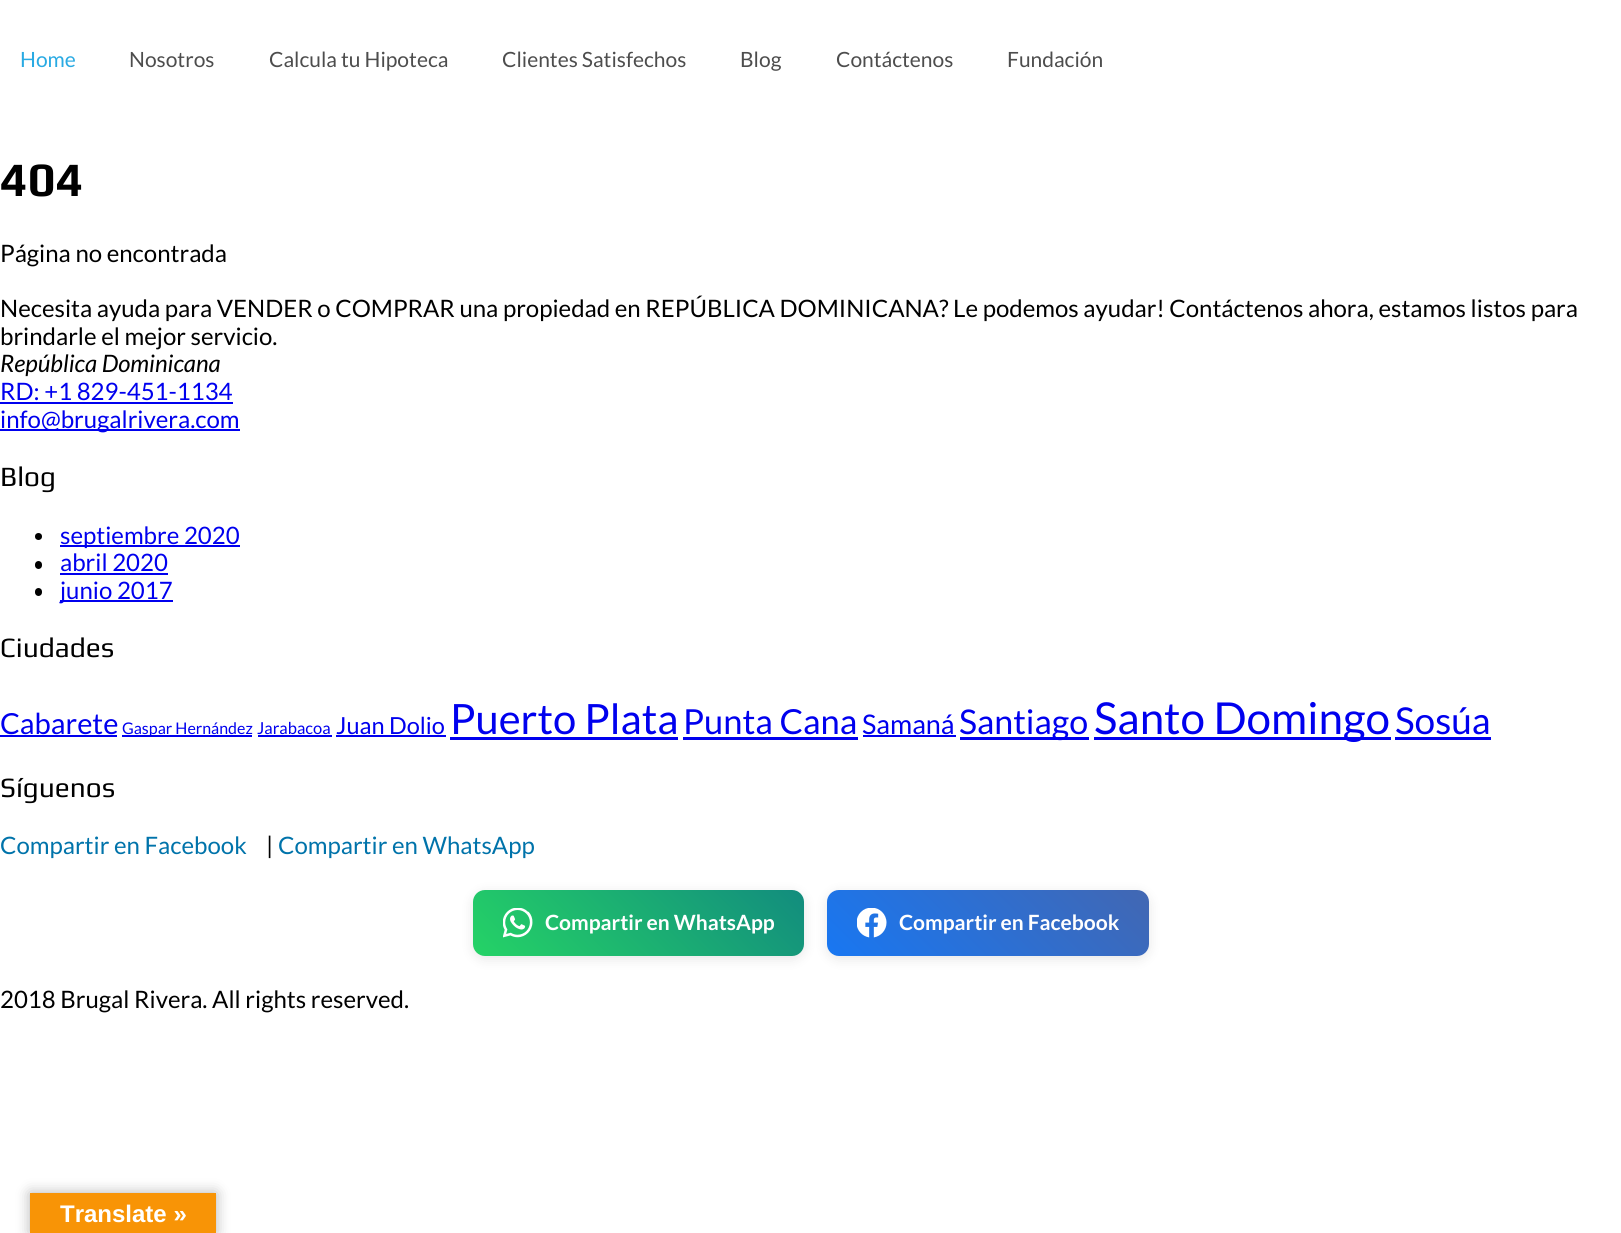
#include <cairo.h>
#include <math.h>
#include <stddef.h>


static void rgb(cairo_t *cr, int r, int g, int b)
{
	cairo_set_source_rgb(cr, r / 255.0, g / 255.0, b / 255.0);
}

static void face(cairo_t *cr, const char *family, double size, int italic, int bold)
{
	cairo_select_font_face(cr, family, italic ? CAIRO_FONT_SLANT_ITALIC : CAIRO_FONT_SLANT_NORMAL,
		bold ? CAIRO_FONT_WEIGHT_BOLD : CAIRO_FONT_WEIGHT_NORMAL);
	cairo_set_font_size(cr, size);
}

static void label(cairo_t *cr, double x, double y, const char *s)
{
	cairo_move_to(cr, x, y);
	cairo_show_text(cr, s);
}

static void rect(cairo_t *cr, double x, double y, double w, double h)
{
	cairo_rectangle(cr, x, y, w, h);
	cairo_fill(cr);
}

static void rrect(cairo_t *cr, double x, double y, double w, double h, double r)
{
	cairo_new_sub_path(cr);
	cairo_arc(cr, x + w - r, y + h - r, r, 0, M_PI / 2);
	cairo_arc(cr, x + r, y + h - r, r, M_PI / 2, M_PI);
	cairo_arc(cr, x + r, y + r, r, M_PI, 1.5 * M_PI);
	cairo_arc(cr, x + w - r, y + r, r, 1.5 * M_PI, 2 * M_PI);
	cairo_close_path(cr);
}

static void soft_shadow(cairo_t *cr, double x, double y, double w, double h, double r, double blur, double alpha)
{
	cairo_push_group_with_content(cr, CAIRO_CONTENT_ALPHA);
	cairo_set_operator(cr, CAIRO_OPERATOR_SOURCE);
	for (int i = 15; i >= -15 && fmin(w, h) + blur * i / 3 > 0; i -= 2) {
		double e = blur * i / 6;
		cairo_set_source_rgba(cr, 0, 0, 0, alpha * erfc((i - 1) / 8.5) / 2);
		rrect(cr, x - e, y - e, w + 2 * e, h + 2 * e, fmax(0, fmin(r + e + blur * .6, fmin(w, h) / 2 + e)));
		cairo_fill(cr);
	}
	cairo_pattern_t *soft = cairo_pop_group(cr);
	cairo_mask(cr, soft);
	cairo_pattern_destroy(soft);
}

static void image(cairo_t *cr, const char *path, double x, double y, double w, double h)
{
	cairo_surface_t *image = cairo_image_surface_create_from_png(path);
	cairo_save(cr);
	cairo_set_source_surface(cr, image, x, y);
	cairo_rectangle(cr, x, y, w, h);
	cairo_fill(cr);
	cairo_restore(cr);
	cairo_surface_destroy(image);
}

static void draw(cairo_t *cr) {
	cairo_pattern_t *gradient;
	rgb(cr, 255, 255, 255);
	cairo_paint(cr);
	face(cr, "Lato", 21, 0, 0);
	rgb(cr, 41, 170, 227);
	label(cr, 20, 67, "Home");
	rgb(cr, 77, 77, 77);
	label(cr, 129, 67, "Nosotros");
	label(cr, 269, 67, "Calcula tu Hipoteca");
	label(cr, 502, 67, "Clientes Satisfechos");
	label(cr, 740, 67, "Blog");
	label(cr, 836, 67, "Contáctenos");
	label(cr, 1007, 67, "Fundación");
	face(cr, "Play", 48, 0, 1);
	rgb(cr, 0, 0, 0);
	label(cr, 0, 196, "404");
	face(cr, "Lato", 24, 0, 0);
	label(cr, 0, 262, "Página no encontrada");
	label(cr, 0, 317, "Necesita ayuda para VENDER o COMPRAR una propiedad en REPÚBLICA DOMINICANA? Le podemos ayudar! Contáctenos ahora, estamos listos para");
	label(cr, 0, 345, "brindarle el mejor servicio.");
	face(cr, "Lato", 24, 1, 0);
	label(cr, 0, 372, "República Dominicana");
	face(cr, "Lato", 24, 0, 0);
	rgb(cr, 0, 0, 238);
	label(cr, 0, 400, "RD: +1 829-451-1134");
	rect(cr, 0, 402, 233, 2);
	rect(cr, 0, 429, 240, 2);
	label(cr, 0, 428, "info@brugalrivera.com");
	face(cr, "Play", 28, 0, 0);
	rgb(cr, 0, 0, 0);
	label(cr, 0, 486, "Blog");
	cairo_new_path(cr);
	cairo_arc(cr, 38.5, 536.5, 3.5, 0, 2 * M_PI);
	cairo_fill(cr);
	rgb(cr, 0, 0, 238);
	rect(cr, 60, 545, 180, 2);
	face(cr, "Lato", 24, 0, 0);
	label(cr, 60, 544, "septiembre 2020");
	rgb(cr, 0, 0, 0);
	rrect(cr, 35, 561, 7, 8, 3.5);
	cairo_fill(cr);
	rgb(cr, 0, 0, 238);
	label(cr, 60, 571, "abril 2020");
	rect(cr, 60, 573, 108, 2);
	rgb(cr, 0, 0, 0);
	rrect(cr, 35, 588, 7, 8, 3.5);
	cairo_fill(cr);
	rgb(cr, 0, 0, 238);
	rect(cr, 60, 600, 113, 2);
	label(cr, 60, 599, "junio 2017");
	face(cr, "Play", 28, 0, 0);
	rgb(cr, 0, 0, 0);
	label(cr, 0, 657, "Ciudades");
	face(cr, "Lato", 29, 0, 0);
	rgb(cr, 0, 0, 238);
	label(cr, 0, 734, "Cabarete");
	rect(cr, 0, 735, 117, 2);
	rect(cr, 122, 735, 130, 2);
	face(cr, "Lato", 16, 0, 0);
	label(cr, 122, 734, "Gaspar Hernández");
	face(cr, "Lato", 16.5, 0, 0);
	label(cr, 257, 734, "Jarabacoa");
	rect(cr, 258, 735, 74, 2);
	face(cr, "Lato", 23.5, 0, 0);
	label(cr, 336, 734, "Juan Dolio");
	rect(cr, 336, 735, 110, 2);
	face(cr, "Lato", 41.75, 0, 0);
	label(cr, 450, 734, "Puerto Plata");
	rect(cr, 450, 737, 228, 3);
	face(cr, "Lato", 34.5, 0, 0);
	label(cr, 683, 734, "Punta Cana");
	rect(cr, 683, 737, 175, 3);
	face(cr, "Lato", 27, 0, 0);
	label(cr, 862, 734, "Samaná");
	rect(cr, 863, 735, 93, 2);
	rect(cr, 960, 737, 129, 3);
	face(cr, "Lato", 34, 0, 0);
	label(cr, 959, 734, "Santiago");
	rect(cr, 1094, 737, 297, 3);
	face(cr, "Lato", 44, 0, 0);
	label(cr, 1094, 734, "Santo Domingo");
	face(cr, "Lato", 37, 0, 0);
	label(cr, 1395, 734, "Sosúa");
	rect(cr, 1395, 737, 96, 3);
	face(cr, "Play", 28, 0, 0);
	rgb(cr, 0, 0, 0);
	label(cr, 0, 797, "Síguenos");
	face(cr, "Lato", 24, 0, 0);
	rgb(cr, 0, 115, 170);
	label(cr, 0, 854, "Compartir en Facebook");
	rgb(cr, 0, 0, 0);
	label(cr, 266, 854, "|");
	rgb(cr, 0, 115, 170);
	label(cr, 278, 854, "Compartir en WhatsApp");
	rgb(cr, 0, 0, 0);
	soft_shadow(cr, 473, 893, 331, 66, 12, 6, 0.1);
	gradient = cairo_pattern_create_linear(539, 1022, 738, 823);
	cairo_pattern_add_color_stop_rgba(gradient, 0, 0.145, 0.827, 0.4, 1);
	cairo_pattern_add_color_stop_rgba(gradient, 1, 0.071, 0.549, 0.494, 1);
	cairo_set_source(cr, gradient);
	cairo_pattern_destroy(gradient);
	rrect(cr, 473, 890, 331, 66, 12);
	cairo_fill(cr);
	image(cr, "image0.png", 503, 908, 30, 30);
	face(cr, "Lato", 21, 0, 1);
	rgb(cr, 255, 255, 255);
	label(cr, 545, 930, "Compartir en WhatsApp");
	rgb(cr, 0, 0, 0);
	soft_shadow(cr, 827, 893, 322, 66, 12, 6, 0.1);
	gradient = cairo_pattern_create_linear(891, 1020, 1085, 825);
	cairo_pattern_add_color_stop_rgba(gradient, 0, 0.094, 0.467, 0.949, 1);
	cairo_pattern_add_color_stop_rgba(gradient, 1, 0.259, 0.404, 0.698, 1);
	cairo_set_source(cr, gradient);
	cairo_pattern_destroy(gradient);
	rrect(cr, 827, 890, 322, 66, 12);
	cairo_fill(cr);
	image(cr, "image1.png", 857, 908, 30, 30);
	rgb(cr, 255, 255, 255);
	label(cr, 899, 930, "Compartir en Facebook");
	face(cr, "Lato", 24, 0, 0);
	rgb(cr, 0, 0, 0);
	label(cr, 0, 1008, "2018 Brugal Rivera. All rights reserved.");
	rgb(cr, 0, 0, 0);
	soft_shadow(cr, 30, 1193, 186, 40, 0, 7, 0.3);
	rgb(cr, 248, 148, 6);
	rect(cr, 30, 1193, 186, 40);
	face(cr, "Liberation Sans", 24, 0, 1);
	rgb(cr, 255, 255, 255);
	label(cr, 60, 1222, "Translate »");
}

int main(void) {
	cairo_surface_t *surface = cairo_image_surface_create(CAIRO_FORMAT_RGB24, 1621, 1233);
	cairo_t *cr = cairo_create(surface);
	cairo_font_options_t *options = cairo_font_options_create();
	cairo_font_options_set_hint_metrics(options, CAIRO_HINT_METRICS_OFF);
	cairo_font_options_set_hint_style(options, CAIRO_HINT_STYLE_NONE);
	cairo_set_font_options(cr, options);
	cairo_set_miter_limit(cr, 4);
	draw(cr);
	cairo_surface_write_to_png(surface, "render.png");
	cairo_font_options_destroy(options);
	cairo_destroy(cr);
	cairo_surface_destroy(surface);
	return 0;
}
